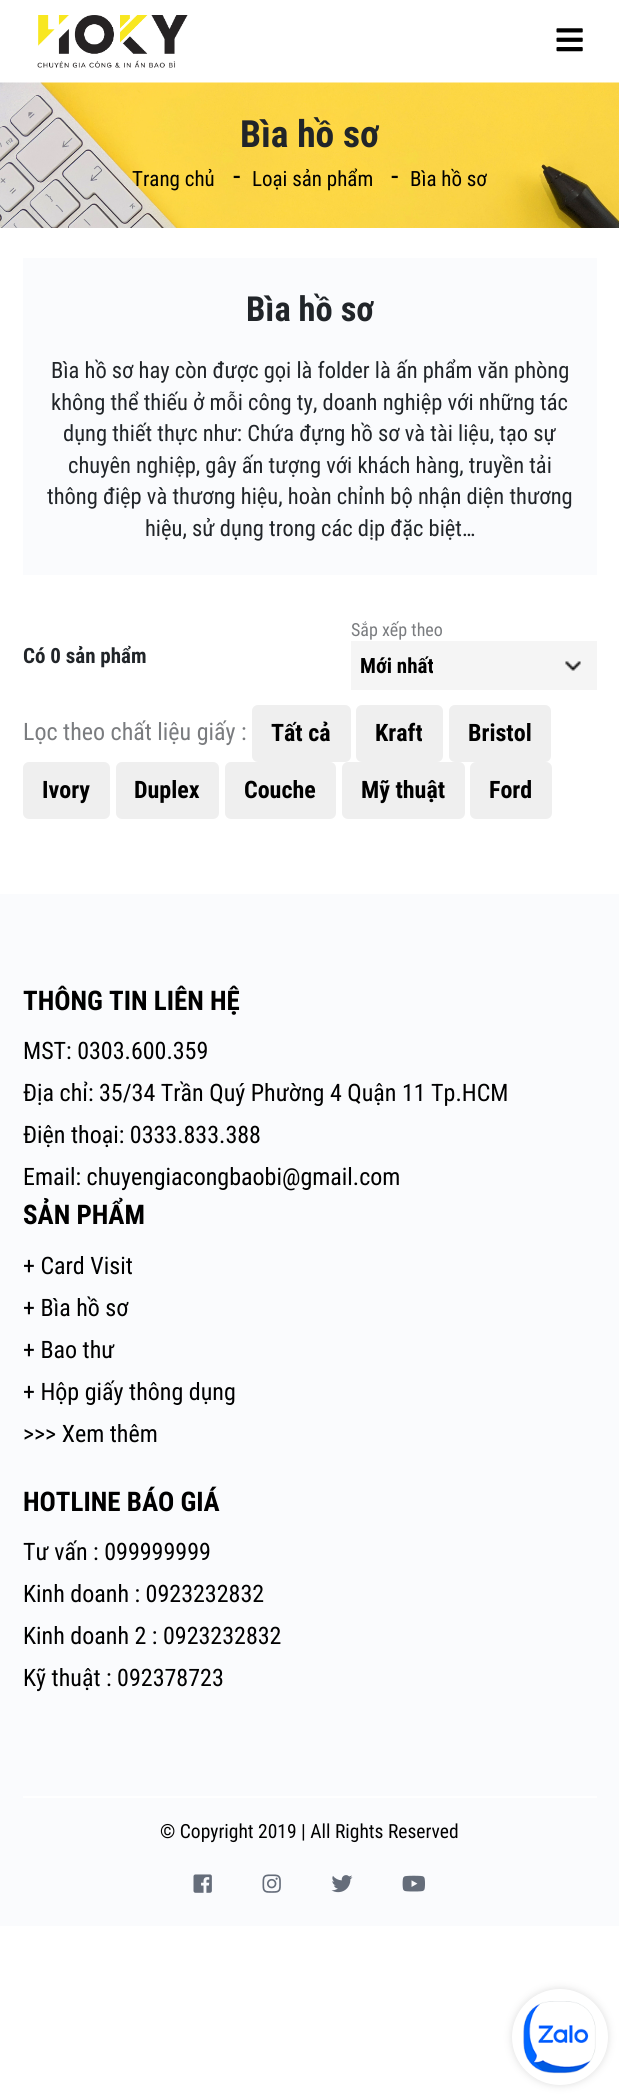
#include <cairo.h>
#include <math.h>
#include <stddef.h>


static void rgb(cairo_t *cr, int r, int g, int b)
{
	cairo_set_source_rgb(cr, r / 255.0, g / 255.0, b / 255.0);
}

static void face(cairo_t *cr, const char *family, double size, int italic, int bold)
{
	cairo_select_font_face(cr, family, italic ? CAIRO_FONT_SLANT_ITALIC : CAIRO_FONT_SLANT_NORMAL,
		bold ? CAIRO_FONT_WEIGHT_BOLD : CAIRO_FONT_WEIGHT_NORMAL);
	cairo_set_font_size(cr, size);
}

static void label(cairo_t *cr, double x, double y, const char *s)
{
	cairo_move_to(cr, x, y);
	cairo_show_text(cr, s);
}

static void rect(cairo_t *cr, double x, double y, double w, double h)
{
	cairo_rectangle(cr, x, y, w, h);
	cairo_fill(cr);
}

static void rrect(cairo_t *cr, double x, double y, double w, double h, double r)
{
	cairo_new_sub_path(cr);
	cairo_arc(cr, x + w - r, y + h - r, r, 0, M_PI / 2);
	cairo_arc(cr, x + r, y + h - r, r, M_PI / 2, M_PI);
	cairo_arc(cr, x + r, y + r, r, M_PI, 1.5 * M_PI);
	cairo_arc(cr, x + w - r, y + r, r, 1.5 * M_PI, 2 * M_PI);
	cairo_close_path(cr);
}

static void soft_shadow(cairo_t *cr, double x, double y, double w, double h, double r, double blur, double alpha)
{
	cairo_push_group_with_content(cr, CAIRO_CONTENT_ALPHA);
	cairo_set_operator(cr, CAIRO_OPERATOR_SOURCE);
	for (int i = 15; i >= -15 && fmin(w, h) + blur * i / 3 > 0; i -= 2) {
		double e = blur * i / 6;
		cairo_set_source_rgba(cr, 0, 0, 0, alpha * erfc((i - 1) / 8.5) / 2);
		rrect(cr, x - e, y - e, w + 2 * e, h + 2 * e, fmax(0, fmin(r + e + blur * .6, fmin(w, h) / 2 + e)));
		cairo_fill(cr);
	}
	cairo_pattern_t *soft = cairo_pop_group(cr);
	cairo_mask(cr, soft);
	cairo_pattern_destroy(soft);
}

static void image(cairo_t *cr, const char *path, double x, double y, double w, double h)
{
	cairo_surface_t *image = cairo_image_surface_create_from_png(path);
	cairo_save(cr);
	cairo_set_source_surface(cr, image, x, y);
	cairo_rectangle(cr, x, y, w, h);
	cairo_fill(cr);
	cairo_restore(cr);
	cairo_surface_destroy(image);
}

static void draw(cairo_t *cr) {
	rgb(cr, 255, 255, 255);
	cairo_paint(cr);
	image(cr, "image0.png", 37, 15, 151, 53);
	image(cr, "image1.png", 556, 28, 27, 24);
	image(cr, "image2.png", 0, 82, 619, 146);
	face(cr, "Roboto Condensed", 37.5, 0, 1);
	rgb(cr, 33, 37, 41);
	label(cr, 240, 147, "Bìa hồ sơ");
	face(cr, "Roboto Condensed", 21, 0, 0);
	rgb(cr, 0, 0, 0);
	label(cr, 132, 186, "Trang chủ");
	face(cr, "Roboto Condensed", 30, 0, 0);
	label(cr, 233, 186, "-");
	face(cr, "Roboto Condensed", 21, 0, 0);
	label(cr, 252, 186, "Loại sản phẩm");
	face(cr, "Roboto Condensed", 30, 0, 0);
	label(cr, 391, 186, "-");
	face(cr, "Roboto Condensed", 21, 0, 0);
	label(cr, 410, 186, "Bìa hồ sơ");
	rgb(cr, 250, 251, 253);
	rect(cr, 23, 258, 574, 317);
	face(cr, "Roboto Condensed", 34.5, 0, 1);
	rgb(cr, 33, 37, 41);
	label(cr, 246, 321, "Bìa hồ sơ");
	face(cr, "Roboto Condensed", 22.5, 0, 0);
	label(cr, 51, 378, "Bìa hồ sơ hay còn được gọi là folder là ấn phẩm văn phòng");
	label(cr, 51, 410, "không thể thiếu ở mỗi công ty, doanh nghiệp với những tác");
	label(cr, 63, 441, "dụng thiết thực như: Chứa đựng hồ sơ và tài liệu, tạo sự");
	label(cr, 68, 473, "chuyên nghiệp, gây ấn tượng với khách hàng, truyền tải");
	label(cr, 47, 504, "thông điệp và thương hiệu, hoàn chỉnh bộ nhận diện thương");
	label(cr, 145, 536, "hiệu, sử dụng trong các dịp đặc biệt…");
	face(cr, "Roboto Condensed", 21, 0, 1);
	label(cr, 23, 663, "Có 0 sản phẩm");
	face(cr, "Roboto Condensed", 18, 0, 0);
	rgb(cr, 122, 124, 127);
	label(cr, 351, 636, "Sắp xếp theo");
	rgb(cr, 245, 245, 245);
	rect(cr, 351, 641, 246, 49);
	image(cr, "image3.png", 565, 661, 16, 10);
	face(cr, "Roboto Condensed", 21, 0, 1);
	rgb(cr, 0, 0, 0);
	label(cr, 360, 673, "Mới nhất");
	face(cr, "Roboto Condensed", 24, 0, 0);
	rgb(cr, 122, 124, 127);
	label(cr, 23, 740, "Lọc theo chất liệu giấy :");
	rgb(cr, 239, 239, 239);
	rrect(cr, 252, 705, 99, 57, 6);
	cairo_fill(cr);
	face(cr, "Roboto Condensed", 24, 0, 1);
	rgb(cr, 0, 0, 0);
	label(cr, 271, 741, "Tất cả");
	rgb(cr, 239, 239, 239);
	rrect(cr, 356, 705, 87, 57, 6);
	cairo_fill(cr);
	rgb(cr, 0, 0, 0);
	label(cr, 375, 741, "Kraft");
	rgb(cr, 239, 239, 239);
	rrect(cr, 449, 705, 102, 57, 6);
	cairo_fill(cr);
	rgb(cr, 0, 0, 0);
	label(cr, 468, 741, "Bristol");
	rgb(cr, 239, 239, 239);
	rrect(cr, 23, 762, 87, 57, 6);
	cairo_fill(cr);
	rgb(cr, 0, 0, 0);
	label(cr, 42, 798, "Ivory");
	rgb(cr, 239, 239, 239);
	rrect(cr, 116, 762, 103, 57, 6);
	cairo_fill(cr);
	rgb(cr, 0, 0, 0);
	label(cr, 134, 798, "Duplex");
	rgb(cr, 239, 239, 239);
	rrect(cr, 225, 762, 111, 57, 6);
	cairo_fill(cr);
	rgb(cr, 0, 0, 0);
	label(cr, 244, 798, "Couche");
	rgb(cr, 239, 239, 239);
	rrect(cr, 342, 762, 123, 57, 6);
	cairo_fill(cr);
	rgb(cr, 0, 0, 0);
	label(cr, 361, 798, "Mỹ thuật");
	rgb(cr, 239, 239, 239);
	rrect(cr, 470, 762, 82, 57, 6);
	cairo_fill(cr);
	rgb(cr, 0, 0, 0);
	label(cr, 489, 798, "Ford");
	rgb(cr, 250, 251, 253);
	rect(cr, 0, 894, 619, 1032);
	face(cr, "Roboto Condensed", 27, 0, 1);
	rgb(cr, 0, 0, 0);
	label(cr, 23, 1010, "THÔNG TIN LIÊN HỆ");
	face(cr, "Roboto Condensed", 24, 0, 0);
	label(cr, 23, 1059, "MST: 0303.600.359");
	label(cr, 23, 1101, "Địa chỉ: 35/34 Trần Quý Phường 4 Quận 11 Tp.HCM");
	label(cr, 23, 1143, "Điện thoại: 0333.833.388");
	label(cr, 23, 1185, "Email: chuyengiacongbaobi@gmail.com");
	face(cr, "Roboto Condensed", 27, 0, 1);
	label(cr, 23, 1224, "SẢN PHẨM");
	face(cr, "Roboto Condensed", 24, 0, 0);
	label(cr, 23, 1274, "+ Card Visit");
	label(cr, 23, 1316, "+ Bìa hồ sơ");
	label(cr, 23, 1358, "+ Bao thư");
	label(cr, 23, 1400, "+ Hộp giấy thông dụng");
	label(cr, 23, 1442, ">>> Xem thêm");
	face(cr, "Roboto Condensed", 27, 0, 1);
	label(cr, 23, 1511, "HOTLINE BÁO GIÁ");
	face(cr, "Roboto Condensed", 24, 0, 0);
	label(cr, 23, 1560, "Tư vấn : 099999999");
	label(cr, 23, 1602, "Kinh doanh : 0923232832");
	label(cr, 23, 1644, "Kinh doanh 2 : 0923232832");
	label(cr, 23, 1686, "Kỹ thuật : 092378723");
	rgb(cr, 255, 255, 255);
	rect(cr, 23, 1796, 574, 2);
	face(cr, "Roboto Condensed", 19.5, 0, 0);
	rgb(cr, 0, 0, 0);
	label(cr, 160, 1838, "© Copyright 2019 | All Rights Reserved");
	image(cr, "image4.png", 193, 1874, 19, 19);
	image(cr, "image5.png", 262, 1874, 19, 19);
	image(cr, "image6.png", 331, 1875, 22, 18);
	image(cr, "image7.png", 402, 1875, 23, 17);
	rgb(cr, 221, 221, 221);
	soft_shadow(cr, 512, 1989, 96, 96, 48, 4, 1);
	rgb(cr, 255, 255, 255);
	cairo_arc(cr, 560, 2037, 48, 0, 2 * M_PI);
	cairo_fill(cr);
	image(cr, "image8.png", 523, 2001, 73, 73);
}

int main(void) {
	cairo_surface_t *surface = cairo_image_surface_create(CAIRO_FORMAT_RGB24, 619, 2100);
	cairo_t *cr = cairo_create(surface);
	cairo_font_options_t *options = cairo_font_options_create();
	cairo_font_options_set_hint_metrics(options, CAIRO_HINT_METRICS_OFF);
	cairo_font_options_set_hint_style(options, CAIRO_HINT_STYLE_NONE);
	cairo_set_font_options(cr, options);
	cairo_set_miter_limit(cr, 4);
	draw(cr);
	cairo_surface_write_to_png(surface, "render.png");
	cairo_font_options_destroy(options);
	cairo_destroy(cr);
	cairo_surface_destroy(surface);
	return 0;
}
